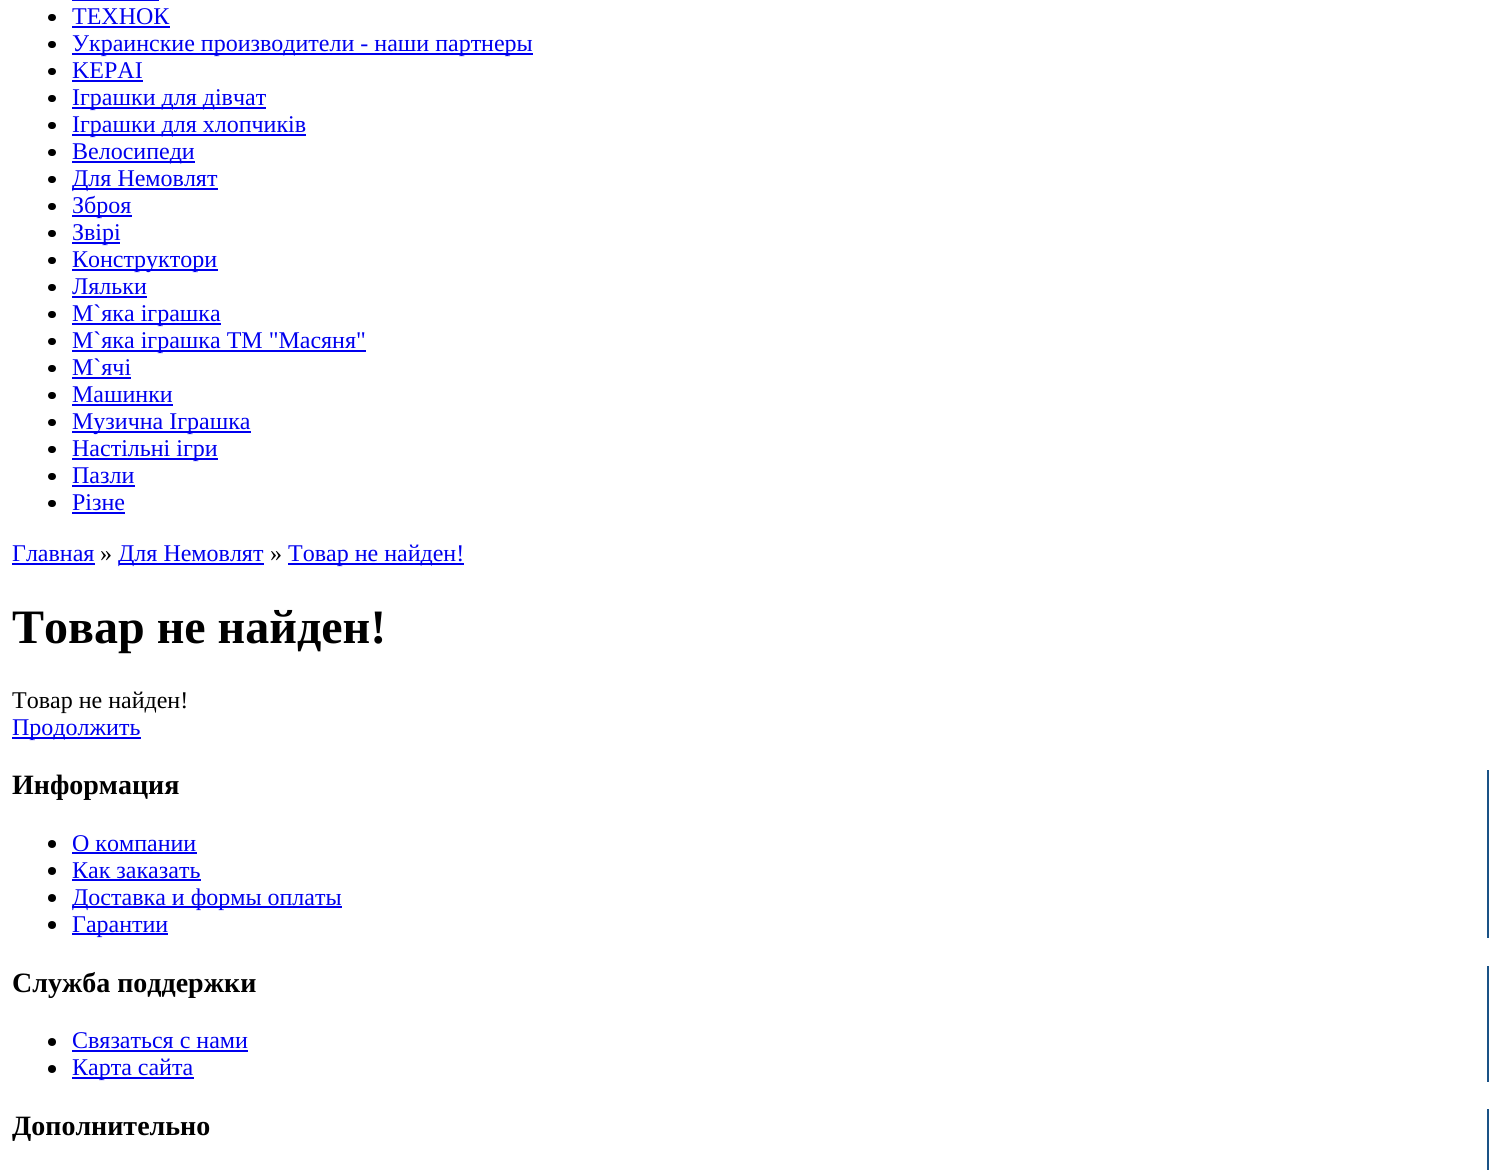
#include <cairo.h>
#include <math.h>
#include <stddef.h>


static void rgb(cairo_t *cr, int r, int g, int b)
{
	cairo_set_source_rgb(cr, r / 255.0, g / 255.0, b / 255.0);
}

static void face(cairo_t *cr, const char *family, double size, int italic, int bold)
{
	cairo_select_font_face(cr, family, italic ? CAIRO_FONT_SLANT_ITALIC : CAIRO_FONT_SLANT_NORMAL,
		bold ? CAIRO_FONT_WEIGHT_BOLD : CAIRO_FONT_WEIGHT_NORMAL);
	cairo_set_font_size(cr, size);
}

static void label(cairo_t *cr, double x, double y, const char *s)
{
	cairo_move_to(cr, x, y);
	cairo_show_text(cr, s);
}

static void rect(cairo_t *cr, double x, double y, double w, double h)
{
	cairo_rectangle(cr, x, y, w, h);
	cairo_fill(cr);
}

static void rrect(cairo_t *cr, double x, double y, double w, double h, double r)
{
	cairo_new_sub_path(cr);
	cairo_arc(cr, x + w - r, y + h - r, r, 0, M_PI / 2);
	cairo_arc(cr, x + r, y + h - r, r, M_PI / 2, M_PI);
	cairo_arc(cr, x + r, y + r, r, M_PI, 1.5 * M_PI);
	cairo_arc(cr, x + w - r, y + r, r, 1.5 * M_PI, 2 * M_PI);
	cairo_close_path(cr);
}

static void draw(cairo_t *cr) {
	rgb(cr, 255, 255, 255);
	cairo_paint(cr);
	rgb(cr, 0, 0, 238);
	rect(cr, 72, 0, 87, 1);
	rgb(cr, 0, 0, 0);
	rrect(cr, 48, 14, 8, 7, 3.5);
	cairo_fill(cr);
	face(cr, "Liberation Serif", 24, 0, 0);
	rgb(cr, 0, 0, 238);
	label(cr, 72, 24, "ТЕХНОК");
	rect(cr, 72, 26, 98, 2);
	rgb(cr, 0, 0, 0);
	rrect(cr, 48, 41, 8, 7, 3.5);
	cairo_fill(cr);
	rgb(cr, 0, 0, 238);
	rect(cr, 72, 53, 461, 2);
	label(cr, 72, 51, "Украинские производители - наши партнеры");
	rgb(cr, 0, 0, 0);
	rrect(cr, 48, 68, 8, 7, 3.5);
	cairo_fill(cr);
	rgb(cr, 0, 0, 238);
	label(cr, 72, 78, "KEPAI");
	rect(cr, 72, 80, 71, 2);
	rgb(cr, 0, 0, 0);
	rrect(cr, 48, 95, 8, 7, 3.5);
	cairo_fill(cr);
	rgb(cr, 0, 0, 238);
	rect(cr, 72, 107, 194, 2);
	label(cr, 72, 105, "Іграшки для дівчат");
	rgb(cr, 0, 0, 0);
	rrect(cr, 48, 122, 8, 7, 3.5);
	cairo_fill(cr);
	rgb(cr, 0, 0, 238);
	rect(cr, 72, 134, 234, 2);
	label(cr, 72, 132, "Іграшки для хлопчиків");
	rgb(cr, 0, 0, 0);
	rrect(cr, 48, 149, 8, 7, 3.5);
	cairo_fill(cr);
	rgb(cr, 0, 0, 238);
	rect(cr, 72, 161, 123, 2);
	label(cr, 72, 159, "Велосипеди");
	rgb(cr, 0, 0, 0);
	rrect(cr, 48, 176, 8, 7, 3.5);
	cairo_fill(cr);
	rgb(cr, 0, 0, 238);
	rect(cr, 72, 188, 146, 2);
	label(cr, 72, 186, "Для Немовлят");
	rgb(cr, 0, 0, 0);
	rrect(cr, 48, 203, 8, 7, 3.5);
	cairo_fill(cr);
	rgb(cr, 0, 0, 238);
	rect(cr, 72, 215, 60, 2);
	label(cr, 72, 213, "Зброя");
	rgb(cr, 0, 0, 0);
	rrect(cr, 48, 230, 8, 7, 3.5);
	cairo_fill(cr);
	rgb(cr, 0, 0, 238);
	rect(cr, 72, 242, 48, 2);
	label(cr, 72, 240, "Звірі");
	rgb(cr, 0, 0, 0);
	rrect(cr, 48, 257, 8, 7, 3.5);
	cairo_fill(cr);
	rgb(cr, 0, 0, 238);
	rect(cr, 72, 269, 146, 2);
	label(cr, 72, 267, "Конструктори");
	rgb(cr, 0, 0, 0);
	rrect(cr, 48, 284, 8, 7, 3.5);
	cairo_fill(cr);
	rgb(cr, 0, 0, 238);
	label(cr, 72, 294, "Ляльки");
	rect(cr, 72, 296, 75, 2);
	rgb(cr, 0, 0, 0);
	rrect(cr, 48, 311, 8, 7, 3.5);
	cairo_fill(cr);
	rgb(cr, 0, 0, 238);
	rect(cr, 72, 323, 149, 2);
	label(cr, 72, 321, "М`яка іграшка");
	rgb(cr, 0, 0, 0);
	rrect(cr, 48, 338, 8, 7, 3.5);
	cairo_fill(cr);
	rgb(cr, 0, 0, 238);
	rect(cr, 72, 350, 294, 2);
	label(cr, 72, 348, "М`яка іграшка ТМ \"Масяня\"");
	rgb(cr, 0, 0, 0);
	rrect(cr, 48, 365, 8, 7, 3.5);
	cairo_fill(cr);
	rgb(cr, 0, 0, 238);
	label(cr, 72, 375, "М`ячі");
	rect(cr, 72, 377, 59, 2);
	rgb(cr, 0, 0, 0);
	rrect(cr, 48, 392, 8, 7, 3.5);
	cairo_fill(cr);
	rgb(cr, 0, 0, 238);
	label(cr, 72, 402, "Машинки");
	rect(cr, 72, 404, 101, 2);
	rgb(cr, 0, 0, 0);
	rrect(cr, 48, 419, 8, 7, 3.5);
	cairo_fill(cr);
	rgb(cr, 0, 0, 238);
	rect(cr, 72, 431, 179, 2);
	label(cr, 72, 429, "Музична Іграшка");
	rgb(cr, 0, 0, 0);
	rrect(cr, 48, 446, 8, 7, 3.5);
	cairo_fill(cr);
	rgb(cr, 0, 0, 238);
	rect(cr, 72, 458, 146, 2);
	label(cr, 72, 456, "Настільні ігри");
	rgb(cr, 0, 0, 0);
	rrect(cr, 48, 473, 8, 7, 3.5);
	cairo_fill(cr);
	rgb(cr, 0, 0, 238);
	label(cr, 72, 483, "Пазли");
	rect(cr, 72, 485, 63, 2);
	rgb(cr, 0, 0, 0);
	rrect(cr, 48, 500, 8, 7, 3.5);
	cairo_fill(cr);
	rgb(cr, 0, 0, 238);
	label(cr, 72, 510, "Різне");
	rect(cr, 72, 512, 53, 2);
	label(cr, 12, 561, "Главная");
	rect(cr, 12, 563, 83, 2);
	rgb(cr, 0, 0, 0);
	label(cr, 100, 561, "»");
	rgb(cr, 0, 0, 238);
	rect(cr, 119, 563, 145, 2);
	label(cr, 118, 561, "Для Немовлят");
	rgb(cr, 0, 0, 0);
	label(cr, 270, 561, "»");
	rgb(cr, 0, 0, 238);
	rect(cr, 288, 563, 176, 2);
	label(cr, 288, 561, "Товар не найден!");
	face(cr, "Liberation Serif", 48, 0, 1);
	rgb(cr, 0, 0, 0);
	label(cr, 12, 643, "Товар не найден!");
	face(cr, "Liberation Serif", 24, 0, 0);
	label(cr, 12, 708, "Товар не найден!");
	rgb(cr, 0, 0, 238);
	rect(cr, 12, 737, 129, 2);
	label(cr, 12, 735, "Продолжить");
	rgb(cr, 26, 82, 134);
	rect(cr, 1487, 770, 2, 168);
	face(cr, "Liberation Serif", 28, 0, 1);
	rgb(cr, 0, 0, 0);
	label(cr, 12, 794, "Информация");
	cairo_new_path(cr);
	cairo_arc(cr, 52, 844, 4, 0, 2 * M_PI);
	cairo_fill(cr);
	face(cr, "Liberation Serif", 24, 0, 0);
	rgb(cr, 0, 0, 238);
	label(cr, 72, 851, "О компании");
	rect(cr, 72, 852, 125, 2);
	rgb(cr, 0, 0, 0);
	cairo_new_path(cr);
	cairo_arc(cr, 52, 871, 4, 0, 2 * M_PI);
	cairo_fill(cr);
	rgb(cr, 0, 0, 238);
	label(cr, 72, 878, "Как заказать");
	rect(cr, 72, 879, 129, 2);
	rgb(cr, 0, 0, 0);
	cairo_new_path(cr);
	cairo_arc(cr, 52, 898, 4, 0, 2 * M_PI);
	cairo_fill(cr);
	rgb(cr, 0, 0, 238);
	rect(cr, 72, 906, 270, 2);
	label(cr, 72, 905, "Доставка и формы оплаты");
	rgb(cr, 0, 0, 0);
	cairo_new_path(cr);
	cairo_arc(cr, 52, 925, 4, 0, 2 * M_PI);
	cairo_fill(cr);
	rgb(cr, 0, 0, 238);
	rect(cr, 72, 933, 96, 2);
	label(cr, 72, 932, "Гарантии");
	rgb(cr, 26, 82, 134);
	rect(cr, 1487, 966, 2, 116);
	face(cr, "Liberation Serif", 28, 0, 1);
	rgb(cr, 0, 0, 0);
	label(cr, 12, 992, "Служба поддержки");
	cairo_new_path(cr);
	cairo_arc(cr, 52, 1042, 4, 0, 2 * M_PI);
	cairo_fill(cr);
	face(cr, "Liberation Serif", 24, 0, 0);
	rgb(cr, 0, 0, 238);
	label(cr, 72, 1048, "Связаться с нами");
	rect(cr, 72, 1050, 176, 2);
	rgb(cr, 0, 0, 0);
	cairo_new_path(cr);
	cairo_arc(cr, 52, 1069, 4, 0, 2 * M_PI);
	cairo_fill(cr);
	rgb(cr, 0, 0, 238);
	rect(cr, 72, 1077, 122, 2);
	label(cr, 72, 1075, "Карта сайта");
	rgb(cr, 26, 82, 134);
	rect(cr, 1487, 1109, 2, 61);
	face(cr, "Liberation Serif", 28, 0, 1);
	rgb(cr, 0, 0, 0);
	label(cr, 12, 1135, "Дополнительно");
}

int main(void) {
	cairo_surface_t *surface = cairo_image_surface_create(CAIRO_FORMAT_RGB24, 1500, 1170);
	cairo_t *cr = cairo_create(surface);
	cairo_font_options_t *options = cairo_font_options_create();
	cairo_font_options_set_hint_metrics(options, CAIRO_HINT_METRICS_OFF);
	cairo_font_options_set_hint_style(options, CAIRO_HINT_STYLE_NONE);
	cairo_set_font_options(cr, options);
	cairo_set_miter_limit(cr, 4);
	draw(cr);
	cairo_surface_write_to_png(surface, "render.png");
	cairo_font_options_destroy(options);
	cairo_destroy(cr);
	cairo_surface_destroy(surface);
	return 0;
}
